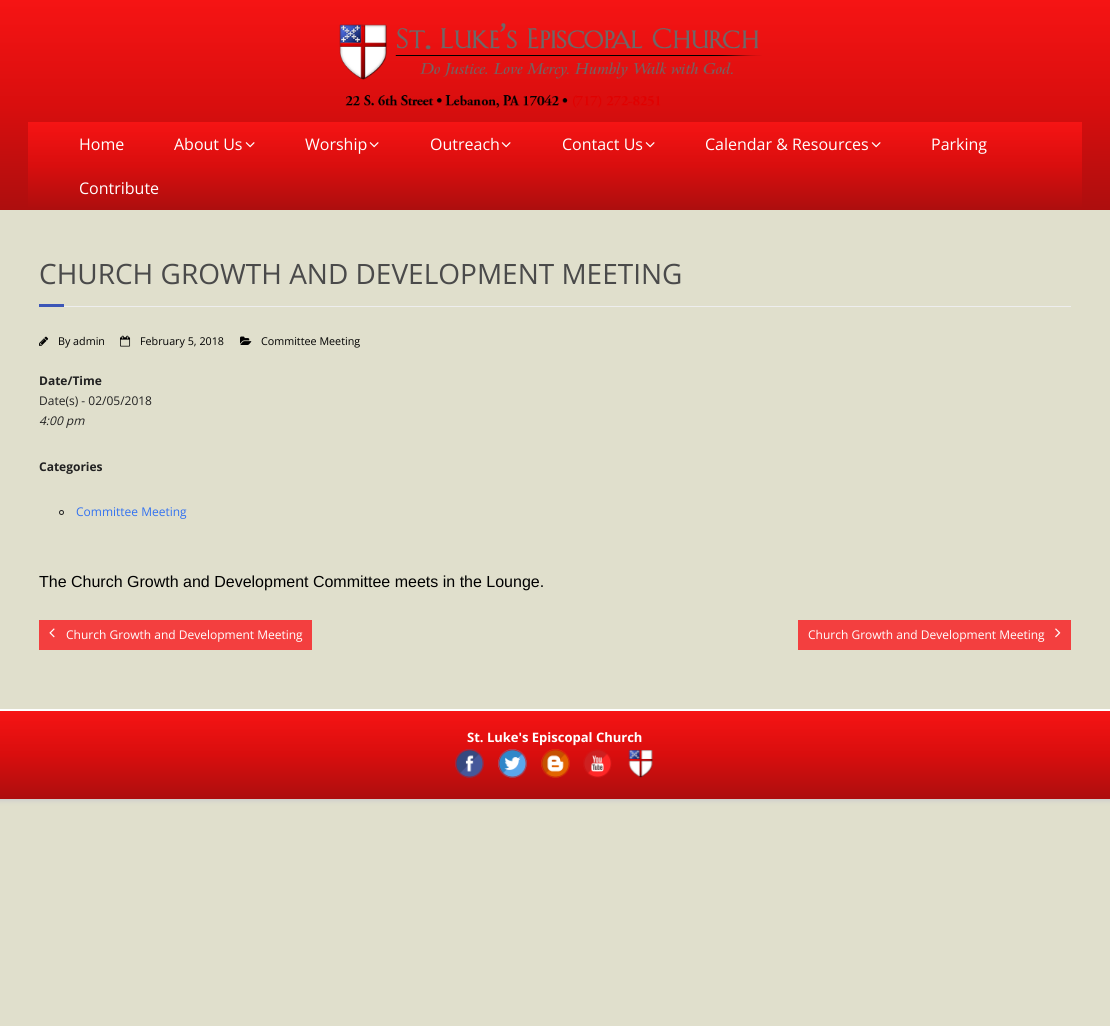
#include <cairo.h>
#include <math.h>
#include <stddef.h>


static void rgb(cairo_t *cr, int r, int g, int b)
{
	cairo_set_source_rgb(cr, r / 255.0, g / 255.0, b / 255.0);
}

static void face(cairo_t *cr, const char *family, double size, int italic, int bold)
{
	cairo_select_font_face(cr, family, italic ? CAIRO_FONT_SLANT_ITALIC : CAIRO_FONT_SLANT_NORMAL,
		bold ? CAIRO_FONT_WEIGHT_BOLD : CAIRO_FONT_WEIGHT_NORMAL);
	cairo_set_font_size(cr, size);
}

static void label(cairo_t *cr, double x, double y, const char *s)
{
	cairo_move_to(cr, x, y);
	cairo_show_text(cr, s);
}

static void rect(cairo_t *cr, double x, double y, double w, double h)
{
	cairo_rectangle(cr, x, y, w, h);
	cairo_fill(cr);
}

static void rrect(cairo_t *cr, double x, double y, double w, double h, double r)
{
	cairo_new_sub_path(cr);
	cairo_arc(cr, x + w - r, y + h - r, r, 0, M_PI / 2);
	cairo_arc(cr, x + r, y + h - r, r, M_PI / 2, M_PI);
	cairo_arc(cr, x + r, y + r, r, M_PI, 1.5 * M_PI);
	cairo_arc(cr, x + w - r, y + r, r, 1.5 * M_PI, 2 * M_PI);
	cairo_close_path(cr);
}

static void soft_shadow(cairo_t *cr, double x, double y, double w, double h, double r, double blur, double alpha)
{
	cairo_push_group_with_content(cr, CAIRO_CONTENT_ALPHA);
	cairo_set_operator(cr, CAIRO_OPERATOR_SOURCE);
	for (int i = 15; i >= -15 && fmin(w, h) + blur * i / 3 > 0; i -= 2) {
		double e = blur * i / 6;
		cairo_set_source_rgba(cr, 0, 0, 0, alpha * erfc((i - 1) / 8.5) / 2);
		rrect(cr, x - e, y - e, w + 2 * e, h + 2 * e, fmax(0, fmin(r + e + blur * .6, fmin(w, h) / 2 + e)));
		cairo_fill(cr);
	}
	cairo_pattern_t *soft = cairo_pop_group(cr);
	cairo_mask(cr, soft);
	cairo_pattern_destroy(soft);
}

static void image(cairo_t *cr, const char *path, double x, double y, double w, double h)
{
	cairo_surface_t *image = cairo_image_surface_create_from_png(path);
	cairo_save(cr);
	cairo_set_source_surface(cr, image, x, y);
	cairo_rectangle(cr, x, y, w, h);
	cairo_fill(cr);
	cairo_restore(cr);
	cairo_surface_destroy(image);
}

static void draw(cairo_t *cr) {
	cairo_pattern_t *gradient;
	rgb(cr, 224, 223, 204);
	cairo_paint(cr);
	cairo_save(cr);
	cairo_rectangle(cr, 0, 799, 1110, 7);
	cairo_clip(cr);
	rgb(cr, 204, 204, 204);
	soft_shadow(cr, -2, -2, 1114, 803, 0, 2.5, 1);
	cairo_restore(cr);
	gradient = cairo_pattern_create_linear(555, 0, 555, 210);
	cairo_pattern_add_color_stop_rgba(gradient, 0, 0.965, 0.078, 0.078, 1);
	cairo_pattern_add_color_stop_rgba(gradient, 0.5, 0.851, 0.055, 0.055, 1);
	cairo_pattern_add_color_stop_rgba(gradient, 1, 0.678, 0.055, 0.055, 1);
	cairo_set_source(cr, gradient);
	cairo_pattern_destroy(gradient);
	rect(cr, 0, 0, 1110, 210);
	image(cr, "image0.png", 339, 23, 423, 85);
	gradient = cairo_pattern_create_linear(555, 122, 555, 210);
	cairo_pattern_add_color_stop_rgba(gradient, 0, 0.965, 0.078, 0.078, 1);
	cairo_pattern_add_color_stop_rgba(gradient, 0.5, 0.851, 0.055, 0.055, 1);
	cairo_pattern_add_color_stop_rgba(gradient, 1, 0.678, 0.055, 0.055, 1);
	cairo_set_source(cr, gradient);
	cairo_pattern_destroy(gradient);
	rect(cr, 28, 122, 1054, 85);
	face(cr, "Open Sans", 16, 0, 0);
	rgb(cr, 255, 255, 255);
	label(cr, 79, 150, "Home");
	label(cr, 174, 150, "About Us");
	image(cr, "image1.png", 245, 142, 10, 6);
	label(cr, 305, 150, "Worship");
	image(cr, "image1.png", 369, 142, 10, 6);
	label(cr, 430, 150, "Outreach");
	image(cr, "image1.png", 501, 142, 10, 6);
	label(cr, 562, 150, "Contact Us");
	image(cr, "image1.png", 645, 142, 10, 6);
	label(cr, 705, 150, "Calendar & Resources");
	image(cr, "image1.png", 871, 142, 10, 6);
	label(cr, 931, 150, "Parking");
	label(cr, 79, 194, "Contribute");
	face(cr, "Open Sans", 28, 0, 0);
	rgb(cr, 74, 74, 74);
	label(cr, 39, 284, "CHURCH GROWTH AND DEVELOPMENT MEETING");
	rgb(cr, 60, 86, 183);
	rect(cr, 39, 304, 25, 3);
	rgb(cr, 238, 238, 238);
	rect(cr, 64, 306, 1007, 1);
	image(cr, "image2.png", 39, 336, 10, 10);
	face(cr, "Open Sans", 10.75, 0, 0);
	rgb(cr, 0, 0, 0);
	label(cr, 58, 345, "By admin");
	image(cr, "image3.png", 120, 335, 11, 12);
	label(cr, 140, 345, "February 5, 2018");
	image(cr, "image4.png", 240, 336, 12, 9);
	label(cr, 261, 345, "Committee Meeting");
	face(cr, "Open Sans", 12, 0, 1);
	rgb(cr, 33, 33, 33);
	label(cr, 39, 385, "Date/Time");
	face(cr, "Open Sans", 12, 0, 0);
	label(cr, 39, 405, "Date(s) - 02/05/2018");
	face(cr, "Open Sans", 12, 1, 0);
	label(cr, 39, 425, "4:00 pm");
	face(cr, "Open Sans", 12, 0, 1);
	label(cr, 39, 471, "Categories");
	cairo_new_path(cr);
	cairo_arc(cr, 61.5, 512.5, 2, 0, 2 * M_PI);
	cairo_set_line_width(cr, 1);
	cairo_stroke(cr);
	face(cr, "Open Sans", 12, 0, 0);
	rgb(cr, 51, 114, 240);
	label(cr, 76, 516, "Committee Meeting");
	face(cr, "Liberation Sans", 16, 0, 0);
	rgb(cr, 0, 0, 0);
	label(cr, 39, 587, "The Church Growth and Development Committee meets in the Lounge.");
	rgb(cr, 243, 63, 63);
	rect(cr, 39, 620, 273, 30);
	image(cr, "image5.png", 49, 628, 6, 10);
	face(cr, "Open Sans", 12, 0, 0);
	rgb(cr, 255, 255, 255);
	label(cr, 66, 639, "Church Growth and Development Meeting");
	rgb(cr, 243, 63, 63);
	rect(cr, 798, 620, 273, 30);
	rgb(cr, 255, 255, 255);
	label(cr, 808, 639, "Church Growth and Development Meeting");
	image(cr, "image6.png", 1055, 628, 6, 10);
	gradient = cairo_pattern_create_linear(555, 711, 555, 799);
	cairo_pattern_add_color_stop_rgba(gradient, 0, 0.965, 0.078, 0.078, 1);
	cairo_pattern_add_color_stop_rgba(gradient, 0.5, 0.851, 0.055, 0.055, 1);
	cairo_pattern_add_color_stop_rgba(gradient, 1, 0.678, 0.055, 0.055, 1);
	cairo_set_source(cr, gradient);
	cairo_pattern_destroy(gradient);
	rect(cr, 0, 711, 1110, 88);
	rgb(cr, 255, 255, 255);
	rect(cr, 0, 709, 1110, 2);
	face(cr, "Open Sans", 13, 0, 1);
	label(cr, 467, 742, "St. Luke's Episcopal Church");
	image(cr, "image7.png", 455, 749, 29, 29);
	image(cr, "image8.png", 498, 749, 29, 29);
	image(cr, "image9.png", 541, 749, 29, 29);
	image(cr, "image10.png", 583, 749, 29, 29);
	image(cr, "image11.png", 628, 750, 25, 28);
}

int main(void) {
	cairo_surface_t *surface = cairo_image_surface_create(CAIRO_FORMAT_RGB24, 1110, 1026);
	cairo_t *cr = cairo_create(surface);
	cairo_font_options_t *options = cairo_font_options_create();
	cairo_font_options_set_hint_metrics(options, CAIRO_HINT_METRICS_OFF);
	cairo_font_options_set_hint_style(options, CAIRO_HINT_STYLE_NONE);
	cairo_set_font_options(cr, options);
	cairo_set_miter_limit(cr, 4);
	draw(cr);
	cairo_surface_write_to_png(surface, "render.png");
	cairo_font_options_destroy(options);
	cairo_destroy(cr);
	cairo_surface_destroy(surface);
	return 0;
}
